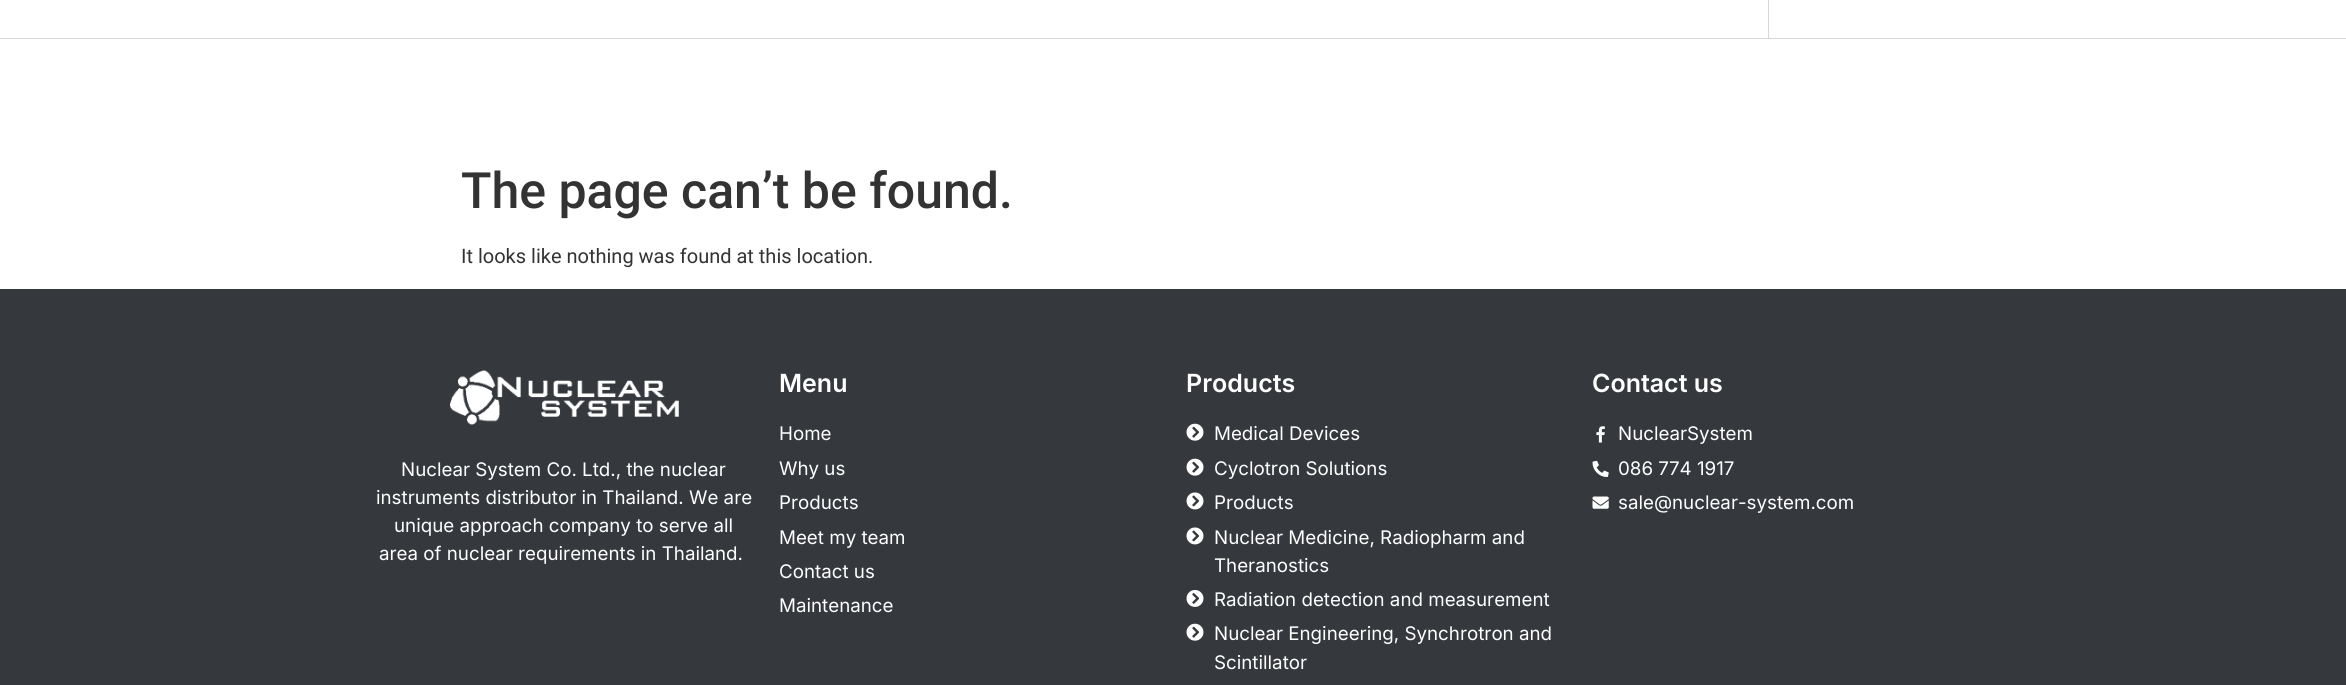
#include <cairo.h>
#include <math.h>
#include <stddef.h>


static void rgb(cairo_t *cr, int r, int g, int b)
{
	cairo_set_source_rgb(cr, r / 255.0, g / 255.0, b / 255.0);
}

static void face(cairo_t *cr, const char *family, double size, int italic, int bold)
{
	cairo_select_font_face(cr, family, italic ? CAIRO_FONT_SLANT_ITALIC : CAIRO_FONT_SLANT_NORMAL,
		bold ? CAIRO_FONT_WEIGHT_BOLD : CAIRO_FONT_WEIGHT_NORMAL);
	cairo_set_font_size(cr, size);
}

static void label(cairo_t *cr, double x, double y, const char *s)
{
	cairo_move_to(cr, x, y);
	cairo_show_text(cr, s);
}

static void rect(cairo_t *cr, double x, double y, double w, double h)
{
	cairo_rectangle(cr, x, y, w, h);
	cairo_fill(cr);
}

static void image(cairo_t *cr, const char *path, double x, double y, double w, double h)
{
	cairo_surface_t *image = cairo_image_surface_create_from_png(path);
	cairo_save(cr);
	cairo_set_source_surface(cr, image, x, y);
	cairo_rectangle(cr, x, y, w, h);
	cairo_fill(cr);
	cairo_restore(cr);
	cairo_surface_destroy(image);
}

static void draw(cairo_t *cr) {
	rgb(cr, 255, 255, 255);
	cairo_paint(cr);
	rgb(cr, 216, 216, 216);
	rect(cr, 0, 38, 2346, 1);
	rect(cr, 1768, 0, 1, 38);
	face(cr, "Roboto Medium", 50, 0, 0);
	rgb(cr, 51, 51, 51);
	label(cr, 461, 208, "The page can’t be found.");
	face(cr, "Roboto", 20, 0, 0);
	label(cr, 461, 263, "It looks like nothing was found at this location.");
	rgb(cr, 53, 56, 61);
	rect(cr, 0, 289, 2346, 396);
	image(cr, "image0.png", 450, 370, 229, 55);
	face(cr, "Inter", 18.75, 0, 0);
	rgb(cr, 255, 255, 255);
	label(cr, 401, 476, "Nuclear System Co. Ltd., the nuclear");
	label(cr, 376, 504, "instruments distributor in Thailand. We are");
	label(cr, 394, 532, "unique approach company to serve all");
	label(cr, 379, 560, "area of nuclear requirements in Thailand.");
	face(cr, "Inter SemiBold", 25, 0, 0);
	label(cr, 779, 392, "Menu");
	face(cr, "Inter", 18.75, 0, 0);
	label(cr, 779, 440, "Home");
	label(cr, 779, 475, "Why us");
	label(cr, 779, 509, "Products");
	label(cr, 779, 544, "Meet my team");
	label(cr, 779, 578, "Contact us");
	label(cr, 779, 612, "Maintenance");
	face(cr, "Inter SemiBold", 25, 0, 0);
	label(cr, 1186, 392, "Products");
	image(cr, "image1.png", 1186, 423, 18, 18);
	face(cr, "Inter", 18.75, 0, 0);
	label(cr, 1214, 440, "Medical Devices");
	image(cr, "image1.png", 1186, 458, 18, 18);
	label(cr, 1214, 475, "Cyclotron Solutions");
	image(cr, "image2.png", 1186, 492, 18, 18);
	label(cr, 1214, 509, "Products");
	image(cr, "image2.png", 1186, 527, 18, 18);
	label(cr, 1214, 544, "Nuclear Medicine, Radiopharm and");
	label(cr, 1214, 572, "Theranostics");
	image(cr, "image3.png", 1186, 590, 18, 17);
	label(cr, 1214, 606, "Radiation detection and measurement");
	image(cr, "image1.png", 1186, 623, 18, 18);
	label(cr, 1214, 640, "Nuclear Engineering, Synchrotron and");
	label(cr, 1214, 669, "Scintillator");
	face(cr, "Inter SemiBold", 25, 0, 0);
	label(cr, 1592, 392, "Contact us");
	image(cr, "image4.png", 1596, 426, 9, 17);
	face(cr, "Inter", 18.75, 0, 0);
	label(cr, 1618, 440, "NuclearSystem");
	image(cr, "image5.png", 1592, 460, 17, 17);
	label(cr, 1618, 475, "086 774 1917");
	image(cr, "image6.png", 1592, 496, 17, 13);
	label(cr, 1618, 509, "sale@nuclear-system.com");
}

int main(void) {
	cairo_surface_t *surface = cairo_image_surface_create(CAIRO_FORMAT_RGB24, 2346, 685);
	cairo_t *cr = cairo_create(surface);
	cairo_font_options_t *options = cairo_font_options_create();
	cairo_font_options_set_hint_metrics(options, CAIRO_HINT_METRICS_OFF);
	cairo_font_options_set_hint_style(options, CAIRO_HINT_STYLE_NONE);
	cairo_set_font_options(cr, options);
	cairo_set_miter_limit(cr, 4);
	draw(cr);
	cairo_surface_write_to_png(surface, "render.png");
	cairo_font_options_destroy(options);
	cairo_destroy(cr);
	cairo_surface_destroy(surface);
	return 0;
}
